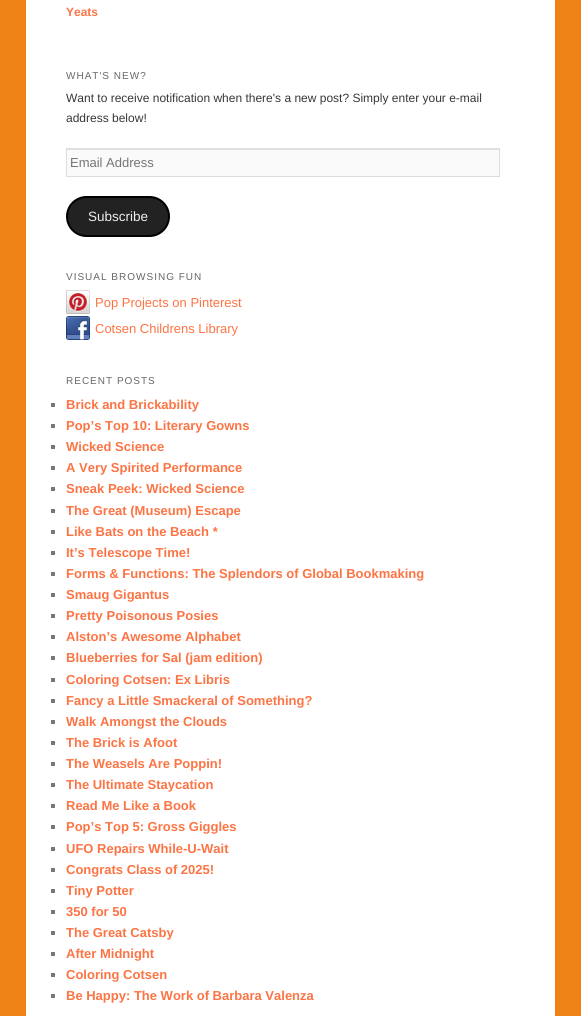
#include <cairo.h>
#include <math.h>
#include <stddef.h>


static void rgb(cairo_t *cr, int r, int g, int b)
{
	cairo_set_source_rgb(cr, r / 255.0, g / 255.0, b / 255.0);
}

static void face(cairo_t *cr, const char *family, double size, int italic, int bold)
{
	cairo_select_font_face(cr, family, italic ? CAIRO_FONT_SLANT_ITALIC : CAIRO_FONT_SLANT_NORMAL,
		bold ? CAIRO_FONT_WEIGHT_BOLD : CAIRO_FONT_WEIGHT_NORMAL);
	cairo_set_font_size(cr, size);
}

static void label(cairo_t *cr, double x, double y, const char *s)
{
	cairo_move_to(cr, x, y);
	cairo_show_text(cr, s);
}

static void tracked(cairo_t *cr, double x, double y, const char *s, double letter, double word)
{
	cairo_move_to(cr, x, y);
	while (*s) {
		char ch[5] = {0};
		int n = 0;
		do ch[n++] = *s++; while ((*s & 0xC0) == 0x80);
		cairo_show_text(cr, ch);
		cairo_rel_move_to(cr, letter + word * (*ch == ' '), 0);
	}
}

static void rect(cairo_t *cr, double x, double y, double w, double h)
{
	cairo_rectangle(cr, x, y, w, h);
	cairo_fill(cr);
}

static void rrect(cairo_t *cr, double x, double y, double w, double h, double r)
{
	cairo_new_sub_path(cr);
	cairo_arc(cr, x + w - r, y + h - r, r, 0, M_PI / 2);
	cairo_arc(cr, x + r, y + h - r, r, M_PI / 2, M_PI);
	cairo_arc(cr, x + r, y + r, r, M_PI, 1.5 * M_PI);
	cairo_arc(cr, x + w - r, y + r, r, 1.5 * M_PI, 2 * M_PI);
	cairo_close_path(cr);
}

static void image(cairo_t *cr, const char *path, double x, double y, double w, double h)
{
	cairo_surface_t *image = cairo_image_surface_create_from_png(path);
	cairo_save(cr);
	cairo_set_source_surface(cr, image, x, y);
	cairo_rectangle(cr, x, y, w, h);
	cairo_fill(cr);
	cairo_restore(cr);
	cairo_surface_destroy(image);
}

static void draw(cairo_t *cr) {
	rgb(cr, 239, 130, 21);
	cairo_paint(cr);
	rgb(cr, 255, 255, 255);
	rect(cr, 26, 0, 529, 1016);
	face(cr, "Liberation Sans", 12, 0, 1);
	rgb(cr, 253, 116, 68);
	label(cr, 66, 16, "Yeats");
	face(cr, "Liberation Sans", 10, 0, 0);
	rgb(cr, 102, 102, 102);
	tracked(cr, 66, 79, "WHAT'S NEW?", 1, 0);
	face(cr, "Liberation Sans", 12, 0, 0);
	rgb(cr, 55, 55, 55);
	label(cr, 66, 102, "Want to receive notification when there's a new post? Simply enter your e-mail");
	label(cr, 66, 122, "address below!");
	rgb(cr, 250, 250, 250);
	rect(cr, 67, 150, 432, 26);
	rgb(cr, 225, 225, 225);
	rect(cr, 67, 149, 432, 1);
	cairo_rectangle(cr, 66.5, 148.5, 433, 28);
	rgb(cr, 221, 221, 221);
	cairo_set_line_width(cr, 1);
	cairo_stroke(cr);
	face(cr, "Liberation Sans", 13, 0, 0);
	rgb(cr, 117, 117, 117);
	label(cr, 70, 167, "Email Address");
	rgb(cr, 34, 34, 34);
	rrect(cr, 67, 197, 102, 39, 19.5);
	cairo_fill_preserve(cr);
	rgb(cr, 0, 0, 0);
	cairo_set_line_width(cr, 2);
	cairo_stroke(cr);
	face(cr, "Liberation Sans", 13.5, 0, 0);
	rgb(cr, 238, 238, 238);
	label(cr, 88, 221, "Subscribe");
	face(cr, "Liberation Sans", 10, 0, 0);
	rgb(cr, 102, 102, 102);
	tracked(cr, 66, 280, "VISUAL BROWSING FUN", 1, 0);
	image(cr, "image0.png", 66, 290, 24, 24);
	face(cr, "Liberation Sans", 13, 0, 0);
	rgb(cr, 253, 116, 68);
	label(cr, 95, 307, "Pop Projects on Pinterest");
	image(cr, "image1.png", 66, 316, 24, 24);
	label(cr, 95, 333, "Cotsen Childrens Library");
	face(cr, "Liberation Sans", 10, 0, 0);
	rgb(cr, 102, 102, 102);
	tracked(cr, 66, 384, "RECENT POSTS", 1, 0);
	rgb(cr, 119, 119, 119);
	rect(cr, 51, 403, 4, 4);
	face(cr, "Liberation Sans", 13, 0, 1);
	rgb(cr, 253, 116, 68);
	label(cr, 66, 409, "Brick and Brickability");
	rgb(cr, 119, 119, 119);
	rect(cr, 51, 424, 4, 4);
	rgb(cr, 253, 116, 68);
	label(cr, 66, 430, "Pop’s Top 10: Literary Gowns");
	rgb(cr, 119, 119, 119);
	rect(cr, 51, 445, 4, 4);
	rgb(cr, 253, 116, 68);
	label(cr, 66, 451, "Wicked Science");
	rgb(cr, 119, 119, 119);
	rect(cr, 51, 466, 4, 4);
	rgb(cr, 253, 116, 68);
	label(cr, 66, 472, "A Very Spirited Performance");
	rgb(cr, 119, 119, 119);
	rect(cr, 51, 487, 4, 4);
	rgb(cr, 253, 116, 68);
	label(cr, 66, 493, "Sneak Peek: Wicked Science");
	rgb(cr, 119, 119, 119);
	rect(cr, 51, 509, 4, 4);
	rgb(cr, 253, 116, 68);
	label(cr, 66, 515, "The Great (Museum) Escape");
	rgb(cr, 119, 119, 119);
	rect(cr, 51, 530, 4, 4);
	rgb(cr, 253, 116, 68);
	label(cr, 66, 536, "Like Bats on the Beach *");
	rgb(cr, 119, 119, 119);
	rect(cr, 51, 551, 4, 4);
	rgb(cr, 253, 116, 68);
	label(cr, 66, 557, "It’s Telescope Time!");
	rgb(cr, 119, 119, 119);
	rect(cr, 51, 572, 4, 4);
	rgb(cr, 253, 116, 68);
	label(cr, 66, 578, "Forms & Functions: The Splendors of Global Bookmaking");
	rgb(cr, 119, 119, 119);
	rect(cr, 51, 593, 4, 4);
	rgb(cr, 253, 116, 68);
	label(cr, 66, 599, "Smaug Gigantus");
	rgb(cr, 119, 119, 119);
	rect(cr, 51, 614, 4, 4);
	rgb(cr, 253, 116, 68);
	label(cr, 66, 620, "Pretty Poisonous Posies");
	rgb(cr, 119, 119, 119);
	rect(cr, 51, 635, 4, 4);
	rgb(cr, 253, 116, 68);
	label(cr, 66, 641, "Alston’s Awesome Alphabet");
	rgb(cr, 119, 119, 119);
	rect(cr, 51, 656, 4, 4);
	rgb(cr, 253, 116, 68);
	label(cr, 66, 662, "Blueberries for Sal (jam edition)");
	rgb(cr, 119, 119, 119);
	rect(cr, 51, 678, 4, 4);
	rgb(cr, 253, 116, 68);
	label(cr, 66, 684, "Coloring Cotsen: Ex Libris");
	rgb(cr, 119, 119, 119);
	rect(cr, 51, 699, 4, 4);
	rgb(cr, 253, 116, 68);
	label(cr, 66, 705, "Fancy a Little Smackeral of Something?");
	rgb(cr, 119, 119, 119);
	rect(cr, 51, 720, 4, 4);
	rgb(cr, 253, 116, 68);
	label(cr, 66, 726, "Walk Amongst the Clouds");
	rgb(cr, 119, 119, 119);
	rect(cr, 51, 741, 4, 4);
	rgb(cr, 253, 116, 68);
	label(cr, 66, 747, "The Brick is Afoot");
	rgb(cr, 119, 119, 119);
	rect(cr, 51, 762, 4, 4);
	rgb(cr, 253, 116, 68);
	label(cr, 66, 768, "The Weasels Are Poppin!");
	rgb(cr, 119, 119, 119);
	rect(cr, 51, 783, 4, 4);
	rgb(cr, 253, 116, 68);
	label(cr, 66, 789, "The Ultimate Staycation");
	rgb(cr, 119, 119, 119);
	rect(cr, 51, 804, 4, 4);
	rgb(cr, 253, 116, 68);
	label(cr, 66, 810, "Read Me Like a Book");
	rgb(cr, 119, 119, 119);
	rect(cr, 51, 825, 4, 4);
	rgb(cr, 253, 116, 68);
	label(cr, 66, 831, "Pop’s Top 5: Gross Giggles");
	rgb(cr, 119, 119, 119);
	rect(cr, 51, 847, 4, 4);
	rgb(cr, 253, 116, 68);
	label(cr, 66, 853, "UFO Repairs While-U-Wait");
	rgb(cr, 119, 119, 119);
	rect(cr, 51, 868, 4, 4);
	rgb(cr, 253, 116, 68);
	label(cr, 66, 874, "Congrats Class of 2025!");
	rgb(cr, 119, 119, 119);
	rect(cr, 51, 889, 4, 4);
	rgb(cr, 253, 116, 68);
	label(cr, 66, 895, "Tiny Potter");
	rgb(cr, 119, 119, 119);
	rect(cr, 51, 910, 4, 4);
	rgb(cr, 253, 116, 68);
	label(cr, 66, 916, "350 for 50");
	rgb(cr, 119, 119, 119);
	rect(cr, 51, 931, 4, 4);
	rgb(cr, 253, 116, 68);
	label(cr, 66, 937, "The Great Catsby");
	rgb(cr, 119, 119, 119);
	rect(cr, 51, 952, 4, 4);
	rgb(cr, 253, 116, 68);
	label(cr, 66, 958, "After Midnight");
	rgb(cr, 119, 119, 119);
	rect(cr, 51, 973, 4, 4);
	rgb(cr, 253, 116, 68);
	label(cr, 66, 979, "Coloring Cotsen");
	rgb(cr, 119, 119, 119);
	rect(cr, 51, 994, 4, 4);
	rgb(cr, 253, 116, 68);
	label(cr, 66, 1000, "Be Happy: The Work of Barbara Valenza");
}

int main(void) {
	cairo_surface_t *surface = cairo_image_surface_create(CAIRO_FORMAT_RGB24, 581, 1016);
	cairo_t *cr = cairo_create(surface);
	cairo_font_options_t *options = cairo_font_options_create();
	cairo_font_options_set_hint_metrics(options, CAIRO_HINT_METRICS_OFF);
	cairo_font_options_set_hint_style(options, CAIRO_HINT_STYLE_NONE);
	cairo_set_font_options(cr, options);
	cairo_set_miter_limit(cr, 4);
	draw(cr);
	cairo_surface_write_to_png(surface, "render.png");
	cairo_font_options_destroy(options);
	cairo_destroy(cr);
	cairo_surface_destroy(surface);
	return 0;
}
